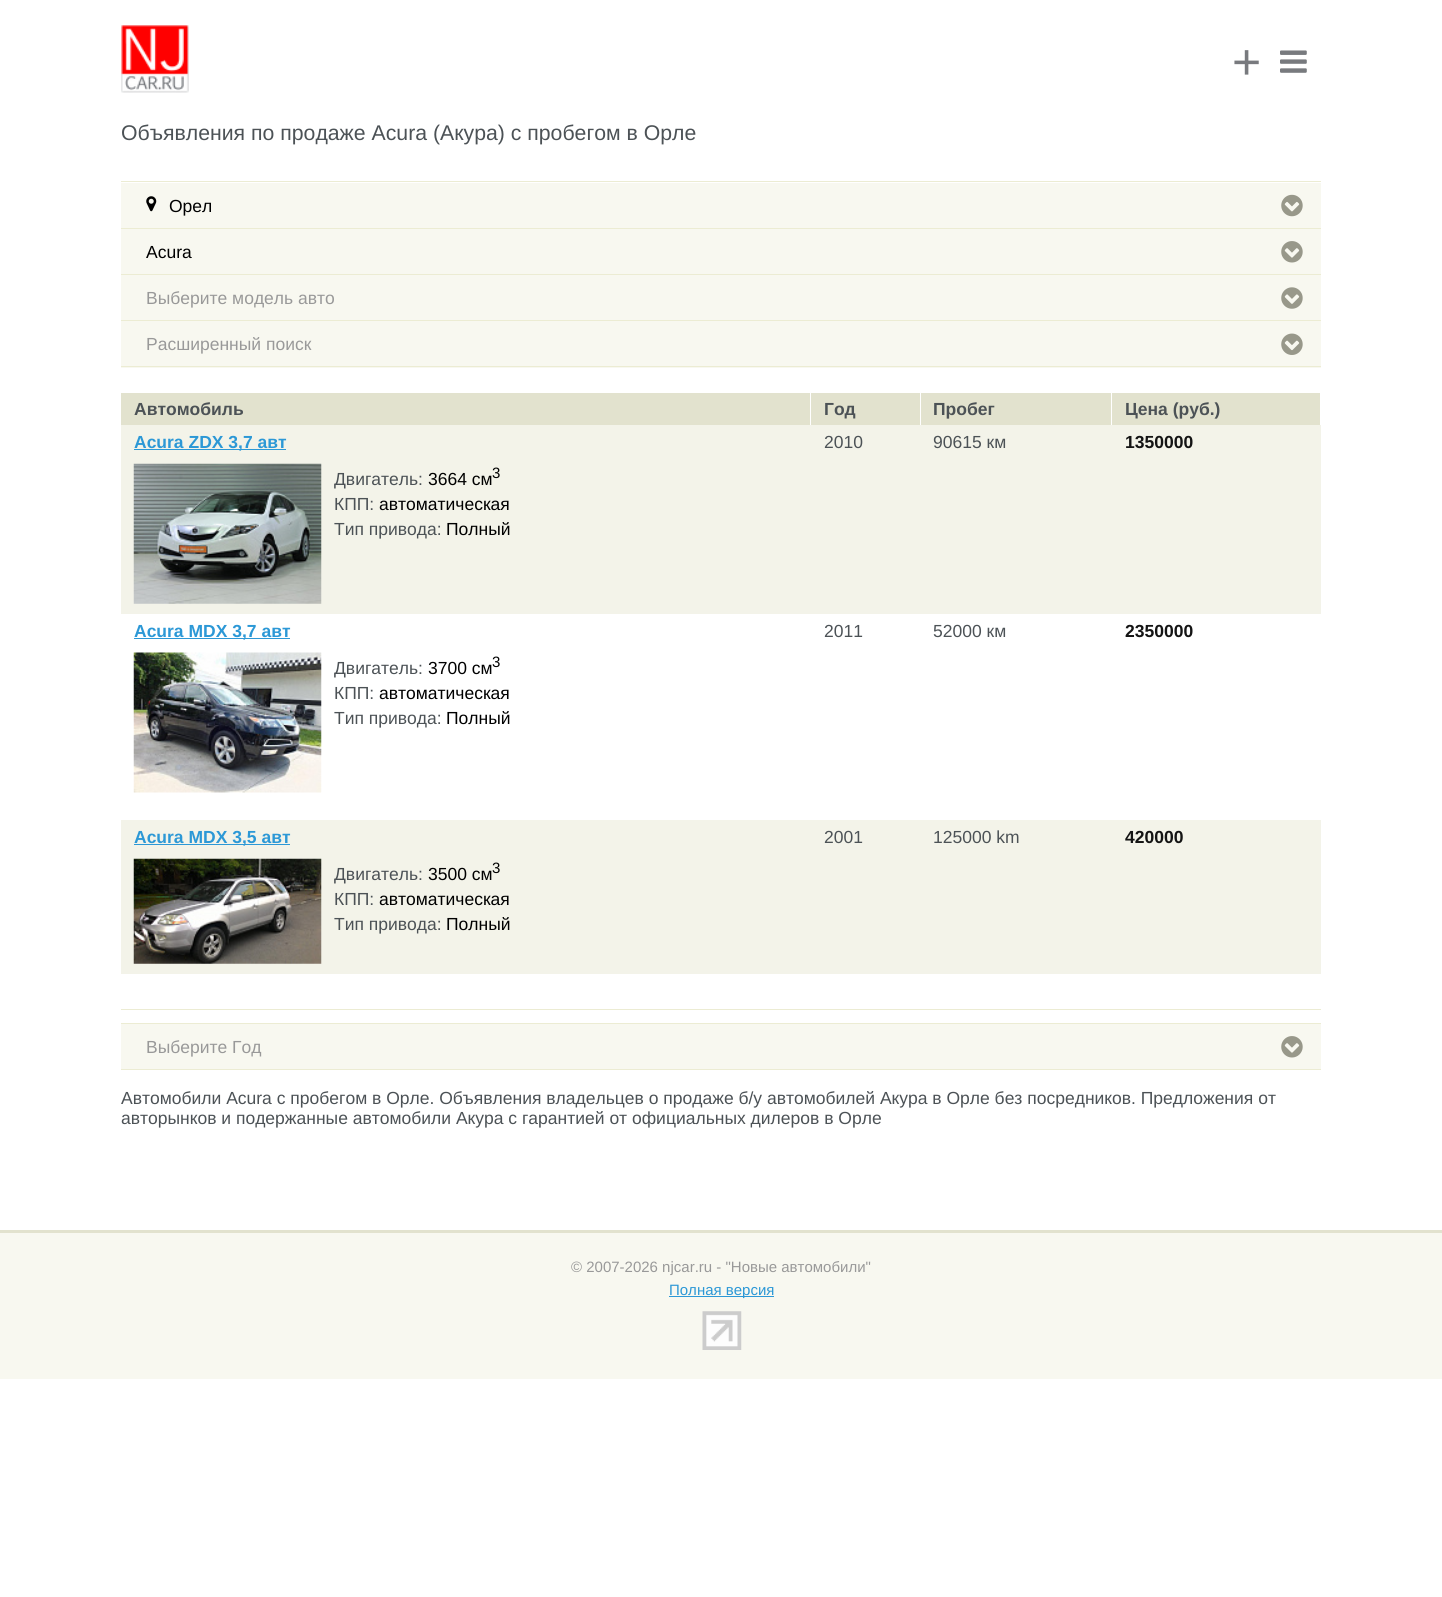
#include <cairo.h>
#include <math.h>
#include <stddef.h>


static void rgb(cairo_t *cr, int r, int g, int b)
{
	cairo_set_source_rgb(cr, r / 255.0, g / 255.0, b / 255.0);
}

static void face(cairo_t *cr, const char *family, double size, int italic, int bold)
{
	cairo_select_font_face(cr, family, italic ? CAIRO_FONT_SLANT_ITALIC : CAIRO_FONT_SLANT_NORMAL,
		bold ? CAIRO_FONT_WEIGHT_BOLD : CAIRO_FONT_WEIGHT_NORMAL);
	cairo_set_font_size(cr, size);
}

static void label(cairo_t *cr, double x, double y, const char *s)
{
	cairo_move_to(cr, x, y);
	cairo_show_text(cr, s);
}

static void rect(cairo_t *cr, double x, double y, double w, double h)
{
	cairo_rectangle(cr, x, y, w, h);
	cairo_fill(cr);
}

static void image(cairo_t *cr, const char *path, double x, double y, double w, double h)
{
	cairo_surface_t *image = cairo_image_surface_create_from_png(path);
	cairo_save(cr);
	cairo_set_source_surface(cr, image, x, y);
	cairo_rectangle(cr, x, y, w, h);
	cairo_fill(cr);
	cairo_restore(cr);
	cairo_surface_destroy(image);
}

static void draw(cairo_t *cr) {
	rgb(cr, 255, 255, 255);
	cairo_paint(cr);
	image(cr, "image0.png", 121, 25, 68, 68);
	face(cr, "Liberation Sans", 50, 0, 0);
	rgb(cr, 120, 122, 126);
	label(cr, 1232, 79, "+");
	image(cr, "image1.png", 1280, 50, 27, 23);
	face(cr, "Liberation Sans", 21.25, 0, 0);
	rgb(cr, 76, 82, 86);
	label(cr, 121, 140, "Объявления по продаже Acura (Акура) с пробегом в Орле");
	rgb(cr, 236, 236, 211);
	rect(cr, 121, 181, 1200, 1);
	rgb(cr, 248, 248, 240);
	rect(cr, 121, 183, 1200, 45);
	rgb(cr, 236, 236, 211);
	rect(cr, 121, 228, 1200, 1);
	image(cr, "image2.png", 146, 196, 11, 16);
	face(cr, "Liberation Sans", 17.5, 0, 0);
	rgb(cr, 0, 0, 0);
	label(cr, 169, 212, "Орeл");
	image(cr, "image3.png", 1281, 194, 22, 23);
	rgb(cr, 248, 248, 240);
	rect(cr, 121, 229, 1200, 45);
	rgb(cr, 236, 236, 211);
	rect(cr, 121, 274, 1200, 1);
	rgb(cr, 0, 0, 0);
	label(cr, 146, 258, "Acura");
	image(cr, "image4.png", 1281, 241, 22, 22);
	rgb(cr, 248, 248, 240);
	rect(cr, 121, 275, 1200, 45);
	rgb(cr, 236, 236, 211);
	rect(cr, 121, 320, 1200, 1);
	rgb(cr, 153, 153, 153);
	label(cr, 146, 304, "Выберите модель авто");
	image(cr, "image5.png", 1281, 287, 22, 22);
	rgb(cr, 248, 248, 240);
	rect(cr, 121, 321, 1200, 47);
	rgb(cr, 236, 236, 211);
	rect(cr, 121, 366, 1200, 1);
	rgb(cr, 153, 153, 153);
	label(cr, 146, 350, "Расширенный поиск");
	image(cr, "image6.png", 1281, 333, 22, 22);
	rgb(cr, 226, 226, 206);
	rect(cr, 121, 393, 689, 32);
	face(cr, "Liberation Sans", 17.5, 0, 1);
	rgb(cr, 76, 82, 86);
	label(cr, 134, 415, "Автомобиль");
	rgb(cr, 226, 226, 206);
	rect(cr, 811, 393, 109, 32);
	rgb(cr, 76, 82, 86);
	label(cr, 824, 415, "Год");
	rgb(cr, 226, 226, 206);
	rect(cr, 921, 393, 399, 32);
	rgb(cr, 255, 255, 255);
	rect(cr, 1111, 393, 1, 32);
	rgb(cr, 76, 82, 86);
	label(cr, 933, 415, "Пробег");
	label(cr, 1125, 415, "Цена (руб.)");
	rgb(cr, 243, 243, 233);
	rect(cr, 121, 425, 1200, 189);
	rgb(cr, 44, 152, 214);
	rect(cr, 134, 449, 152, 1);
	label(cr, 134, 448, "Acura ZDX 3,7 авт");
	image(cr, "image7.png", 133, 463, 189, 141);
	face(cr, "Liberation Sans", 17.5, 0, 0);
	rgb(cr, 76, 82, 86);
	label(cr, 334, 485, "Двигатель:");
	rgb(cr, 0, 0, 0);
	label(cr, 428, 485, "3664 см");
	face(cr, "Liberation Sans", 15, 0, 0);
	label(cr, 492, 478, "3");
	face(cr, "Liberation Sans", 17.5, 0, 0);
	rgb(cr, 76, 82, 86);
	label(cr, 334, 510, "КПП:");
	rgb(cr, 0, 0, 0);
	label(cr, 379, 510, "автоматическая");
	rgb(cr, 76, 82, 86);
	label(cr, 334, 535, "Тип привода:");
	rgb(cr, 0, 0, 0);
	label(cr, 446, 535, "Полный");
	rgb(cr, 76, 82, 86);
	label(cr, 824, 448, "2010");
	label(cr, 933, 448, "90615 км");
	face(cr, "Liberation Sans", 17.5, 0, 1);
	rgb(cr, 20, 20, 20);
	label(cr, 1125, 448, "1350000");
	rgb(cr, 44, 152, 214);
	rect(cr, 134, 638, 156, 1);
	label(cr, 134, 637, "Acura MDX 3,7 авт");
	image(cr, "image8.png", 133, 652, 189, 141);
	face(cr, "Liberation Sans", 17.5, 0, 0);
	rgb(cr, 76, 82, 86);
	label(cr, 334, 674, "Двигатель:");
	rgb(cr, 0, 0, 0);
	label(cr, 428, 674, "3700 см");
	face(cr, "Liberation Sans", 15, 0, 0);
	label(cr, 492, 667, "3");
	face(cr, "Liberation Sans", 17.5, 0, 0);
	rgb(cr, 76, 82, 86);
	label(cr, 334, 699, "КПП:");
	rgb(cr, 0, 0, 0);
	label(cr, 379, 699, "автоматическая");
	rgb(cr, 76, 82, 86);
	label(cr, 334, 724, "Тип привода:");
	rgb(cr, 0, 0, 0);
	label(cr, 446, 724, "Полный");
	rgb(cr, 76, 82, 86);
	label(cr, 824, 637, "2011");
	label(cr, 933, 637, "52000 км");
	face(cr, "Liberation Sans", 17.5, 0, 1);
	rgb(cr, 20, 20, 20);
	label(cr, 1125, 637, "2350000");
	rgb(cr, 243, 243, 233);
	rect(cr, 121, 820, 1200, 154);
	rgb(cr, 44, 152, 214);
	rect(cr, 134, 844, 156, 1);
	label(cr, 134, 843, "Acura MDX 3,5 авт");
	image(cr, "image9.png", 133, 858, 189, 106);
	face(cr, "Liberation Sans", 17.5, 0, 0);
	rgb(cr, 76, 82, 86);
	label(cr, 334, 880, "Двигатель:");
	rgb(cr, 0, 0, 0);
	label(cr, 428, 880, "3500 см");
	face(cr, "Liberation Sans", 15, 0, 0);
	label(cr, 492, 873, "3");
	face(cr, "Liberation Sans", 17.5, 0, 0);
	rgb(cr, 76, 82, 86);
	label(cr, 334, 905, "КПП:");
	rgb(cr, 0, 0, 0);
	label(cr, 379, 905, "автоматическая");
	rgb(cr, 76, 82, 86);
	label(cr, 334, 930, "Тип привода:");
	rgb(cr, 0, 0, 0);
	label(cr, 446, 930, "Полный");
	rgb(cr, 76, 82, 86);
	label(cr, 824, 843, "2001");
	label(cr, 933, 843, "125000 km");
	face(cr, "Liberation Sans", 17.5, 0, 1);
	rgb(cr, 20, 20, 20);
	label(cr, 1125, 843, "420000");
	rgb(cr, 236, 236, 211);
	rect(cr, 121, 1009, 1200, 1);
	rect(cr, 121, 1023, 1200, 1);
	rgb(cr, 248, 248, 240);
	rect(cr, 121, 1024, 1200, 45);
	rgb(cr, 236, 236, 211);
	rect(cr, 121, 1069, 1200, 1);
	face(cr, "Liberation Sans", 17.5, 0, 0);
	rgb(cr, 153, 153, 153);
	label(cr, 146, 1053, "Выберите Год");
	image(cr, "image4.png", 1281, 1036, 22, 22);
	rgb(cr, 76, 82, 86);
	label(cr, 121, 1104, "Автомобили Acura с пробегом в Орле. Объявления владельцев о продаже б/у автомобилей Акура в Орле без посредников. Предложения от");
	label(cr, 121, 1124, "авторынков и подержанные автомобили Акура с гарантией от официальных дилеров в Орле");
	rgb(cr, 248, 248, 240);
	rect(cr, 0, 1233, 1442, 146);
	rgb(cr, 226, 226, 206);
	rect(cr, 0, 1230, 1442, 3);
	face(cr, "Liberation Sans", 15, 0, 0);
	rgb(cr, 153, 153, 153);
	label(cr, 571, 1272, "© 2007-2026 njcar.ru - \"Новые автомобили\"");
	rgb(cr, 44, 152, 214);
	rect(cr, 669, 1296, 105, 1);
	label(cr, 669, 1295, "Полная версия");
	image(cr, "image10.png", 702, 1311, 40, 39);
}

int main(void) {
	cairo_surface_t *surface = cairo_image_surface_create(CAIRO_FORMAT_RGB24, 1442, 1597);
	cairo_t *cr = cairo_create(surface);
	cairo_font_options_t *options = cairo_font_options_create();
	cairo_font_options_set_hint_metrics(options, CAIRO_HINT_METRICS_OFF);
	cairo_font_options_set_hint_style(options, CAIRO_HINT_STYLE_NONE);
	cairo_set_font_options(cr, options);
	cairo_set_miter_limit(cr, 4);
	draw(cr);
	cairo_surface_write_to_png(surface, "render.png");
	cairo_font_options_destroy(options);
	cairo_destroy(cr);
	cairo_surface_destroy(surface);
	return 0;
}
